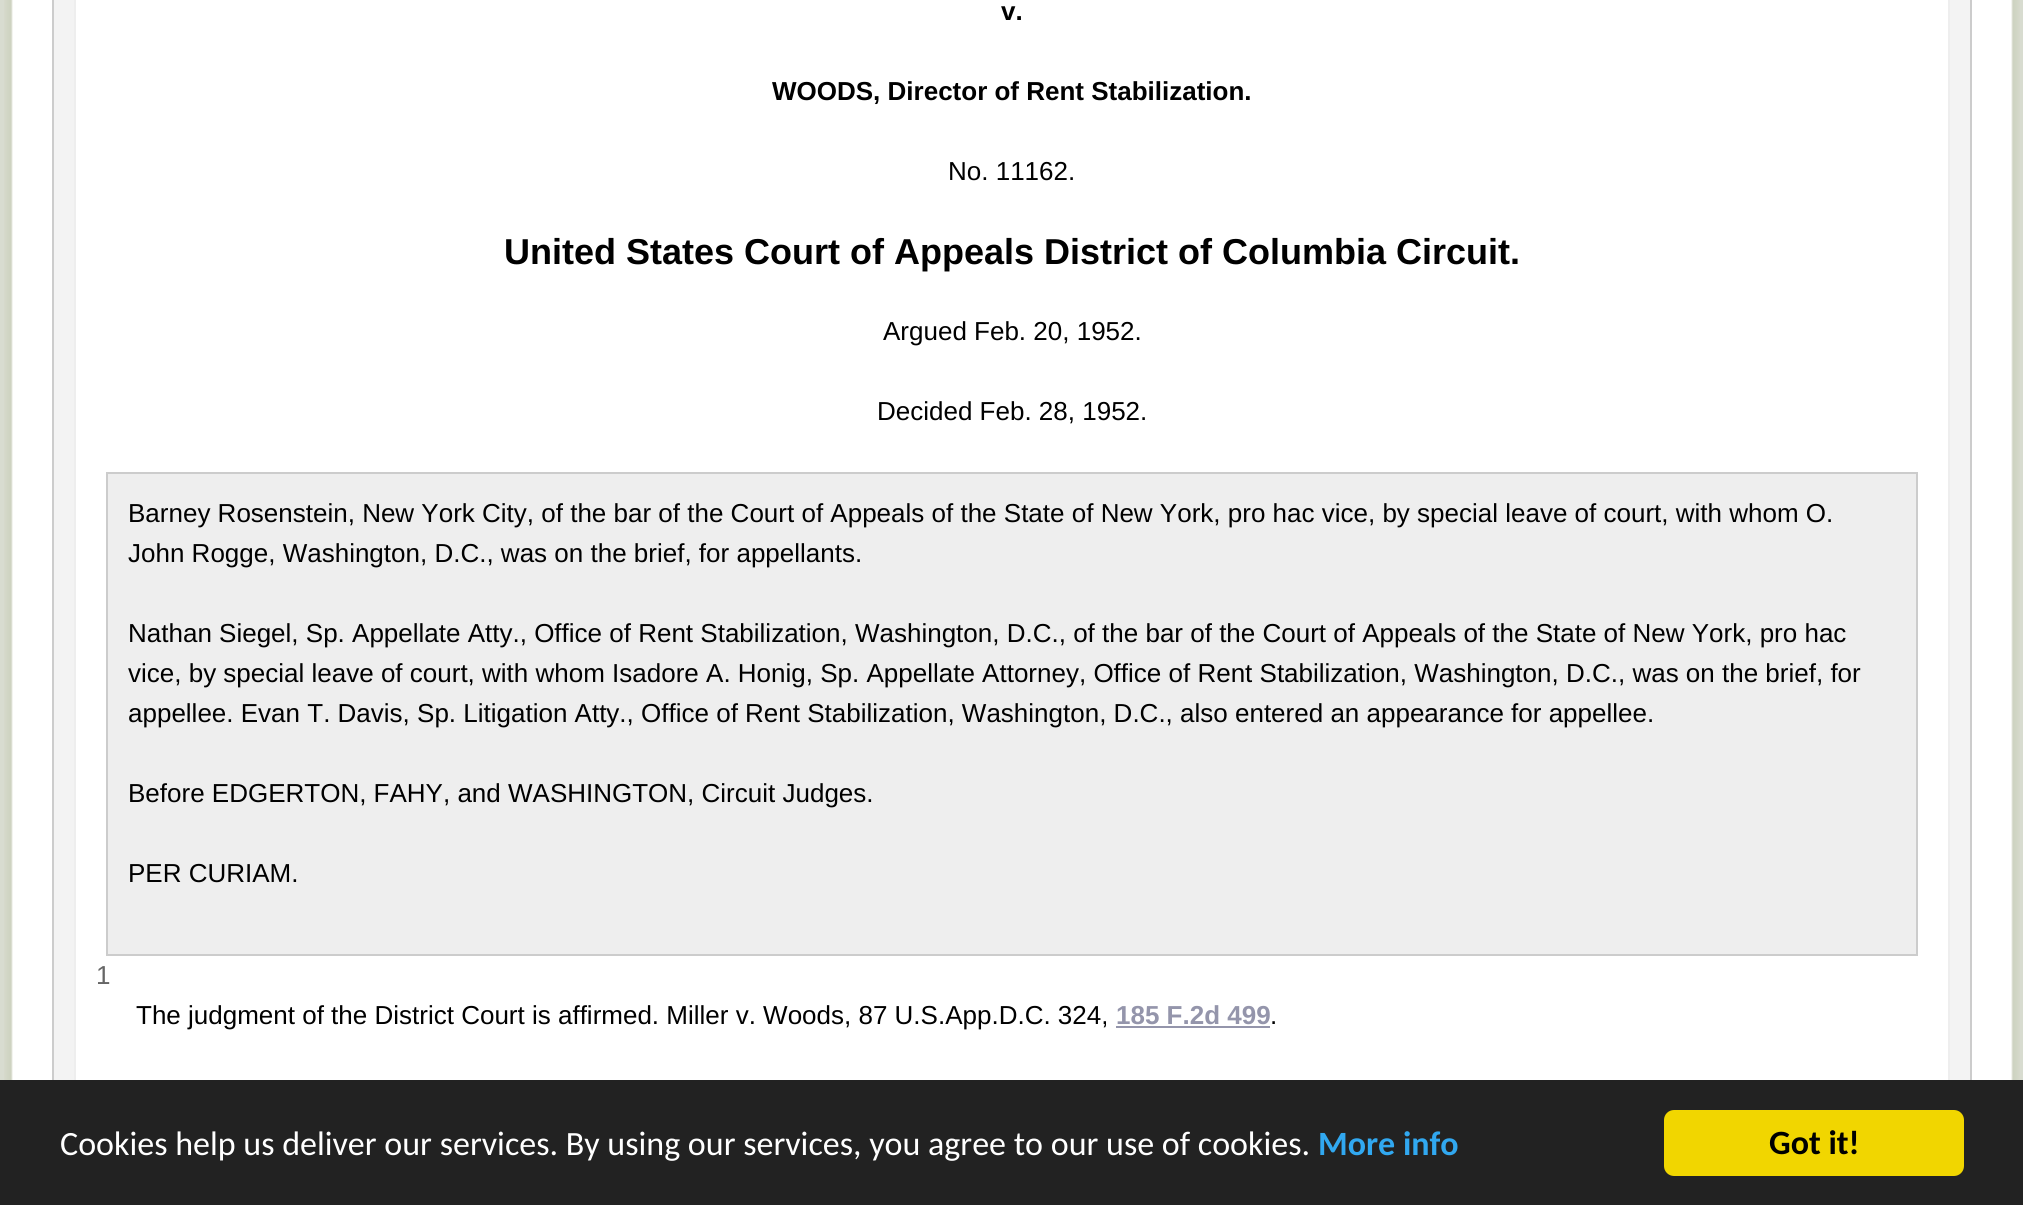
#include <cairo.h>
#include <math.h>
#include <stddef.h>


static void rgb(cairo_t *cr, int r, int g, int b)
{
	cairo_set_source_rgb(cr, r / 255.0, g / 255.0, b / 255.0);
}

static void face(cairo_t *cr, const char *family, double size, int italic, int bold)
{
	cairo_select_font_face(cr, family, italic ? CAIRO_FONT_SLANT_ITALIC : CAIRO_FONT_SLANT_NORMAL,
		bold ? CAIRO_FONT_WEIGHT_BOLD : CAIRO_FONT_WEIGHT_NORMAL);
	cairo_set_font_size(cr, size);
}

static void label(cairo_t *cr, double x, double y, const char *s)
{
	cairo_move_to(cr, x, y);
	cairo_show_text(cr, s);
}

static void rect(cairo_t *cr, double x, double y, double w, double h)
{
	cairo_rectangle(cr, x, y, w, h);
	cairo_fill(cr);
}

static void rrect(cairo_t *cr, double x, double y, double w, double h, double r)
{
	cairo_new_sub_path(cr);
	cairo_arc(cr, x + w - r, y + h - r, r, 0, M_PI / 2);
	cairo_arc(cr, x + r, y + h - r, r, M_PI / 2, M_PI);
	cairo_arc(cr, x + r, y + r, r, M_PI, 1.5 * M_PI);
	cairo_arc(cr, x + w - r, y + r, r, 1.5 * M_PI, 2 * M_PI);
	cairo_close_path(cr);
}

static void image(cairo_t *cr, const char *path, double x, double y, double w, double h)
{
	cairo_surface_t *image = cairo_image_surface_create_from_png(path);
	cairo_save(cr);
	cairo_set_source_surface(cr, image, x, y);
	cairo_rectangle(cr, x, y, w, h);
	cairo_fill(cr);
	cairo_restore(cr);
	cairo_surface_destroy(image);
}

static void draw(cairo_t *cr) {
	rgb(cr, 216, 220, 208);
	cairo_paint(cr);
	image(cr, "image0.png", 4, 0, 2016, 1080);
	rgb(cr, 243, 243, 243);
	rect(cr, 54, 0, 1916, 1080);
	rgb(cr, 204, 204, 204);
	rect(cr, 1970, 0, 2, 1080);
	rect(cr, 52, 0, 2, 1080);
	rgb(cr, 255, 255, 255);
	rect(cr, 76, 0, 1872, 1080);
	cairo_rectangle(cr, 75, -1, 1874, 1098);
	rgb(cr, 238, 238, 238);
	cairo_stroke(cr);
	face(cr, "Liberation Sans", 26, 0, 1);
	rgb(cr, 0, 0, 0);
	label(cr, 1001, 20, "v.");
	label(cr, 772, 100, "WOODS, Director of Rent Stabilization.");
	face(cr, "Liberation Sans", 26, 0, 0);
	label(cr, 948, 180, "No. 11162.");
	face(cr, "Liberation Sans", 36, 0, 1);
	label(cr, 504, 264, "United States Court of Appeals District of Columbia Circuit.");
	face(cr, "Liberation Sans", 26, 0, 0);
	label(cr, 883, 340, "Argued Feb. 20, 1952.");
	label(cr, 877, 420, "Decided Feb. 28, 1952.");
	rgb(cr, 238, 238, 238);
	cairo_rectangle(cr, 107, 473, 1810, 482);
	cairo_fill_preserve(cr);
	rgb(cr, 204, 204, 204);
	cairo_stroke(cr);
	rgb(cr, 0, 0, 0);
	label(cr, 128, 522, "Barney Rosenstein, New York City, of the bar of the Court of Appeals of the State of New York, pro hac vice, by special leave of court, with whom O.");
	label(cr, 128, 562, "John Rogge, Washington, D.C., was on the brief, for appellants.");
	label(cr, 128, 642, "Nathan Siegel, Sp. Appellate Atty., Office of Rent Stabilization, Washington, D.C., of the bar of the Court of Appeals of the State of New York, pro hac");
	label(cr, 128, 682, "vice, by special leave of court, with whom Isadore A. Honig, Sp. Appellate Attorney, Office of Rent Stabilization, Washington, D.C., was on the brief, for");
	label(cr, 128, 722, "appellee. Evan T. Davis, Sp. Litigation Atty., Office of Rent Stabilization, Washington, D.C., also entered an appearance for appellee.");
	label(cr, 128, 802, "Before EDGERTON, FAHY, and WASHINGTON, Circuit Judges.");
	label(cr, 128, 882, "PER CURIAM.");
	rgb(cr, 102, 102, 102);
	label(cr, 96, 984, "1");
	rgb(cr, 0, 0, 0);
	label(cr, 136, 1024, "The judgment of the District Court is affirmed. Miller v. Woods, 87 U.S.App.D.C. 324,");
	face(cr, "Liberation Sans", 26, 0, 1);
	rgb(cr, 148, 149, 171);
	label(cr, 1116, 1024, "185 F.2d 499");
	rect(cr, 1116, 1026, 154, 2);
	face(cr, "Liberation Sans", 26, 0, 0);
	rgb(cr, 0, 0, 0);
	label(cr, 1270, 1024, ".");
	rgb(cr, 34, 34, 34);
	rect(cr, 0, 1080, 2023, 125);
	face(cr, "Carlito", 34, 0, 0);
	rgb(cr, 255, 255, 255);
	label(cr, 60, 1155, "Cookies help us deliver our services. By using our services, you agree to our use of cookies.");
	face(cr, "Carlito", 34, 0, 1);
	rgb(cr, 49, 168, 240);
	label(cr, 1318, 1155, "More info");
	rgb(cr, 241, 214, 0);
	rrect(cr, 1664, 1110, 300, 66, 10);
	cairo_fill(cr);
	rgb(cr, 0, 0, 0);
	label(cr, 1769, 1154, "Got it!");
}

int main(void) {
	cairo_surface_t *surface = cairo_image_surface_create(CAIRO_FORMAT_RGB24, 2023, 1205);
	cairo_t *cr = cairo_create(surface);
	cairo_font_options_t *options = cairo_font_options_create();
	cairo_font_options_set_hint_metrics(options, CAIRO_HINT_METRICS_OFF);
	cairo_font_options_set_hint_style(options, CAIRO_HINT_STYLE_NONE);
	cairo_set_font_options(cr, options);
	cairo_set_miter_limit(cr, 4);
	draw(cr);
	cairo_surface_write_to_png(surface, "render.png");
	cairo_font_options_destroy(options);
	cairo_destroy(cr);
	cairo_surface_destroy(surface);
	return 0;
}
